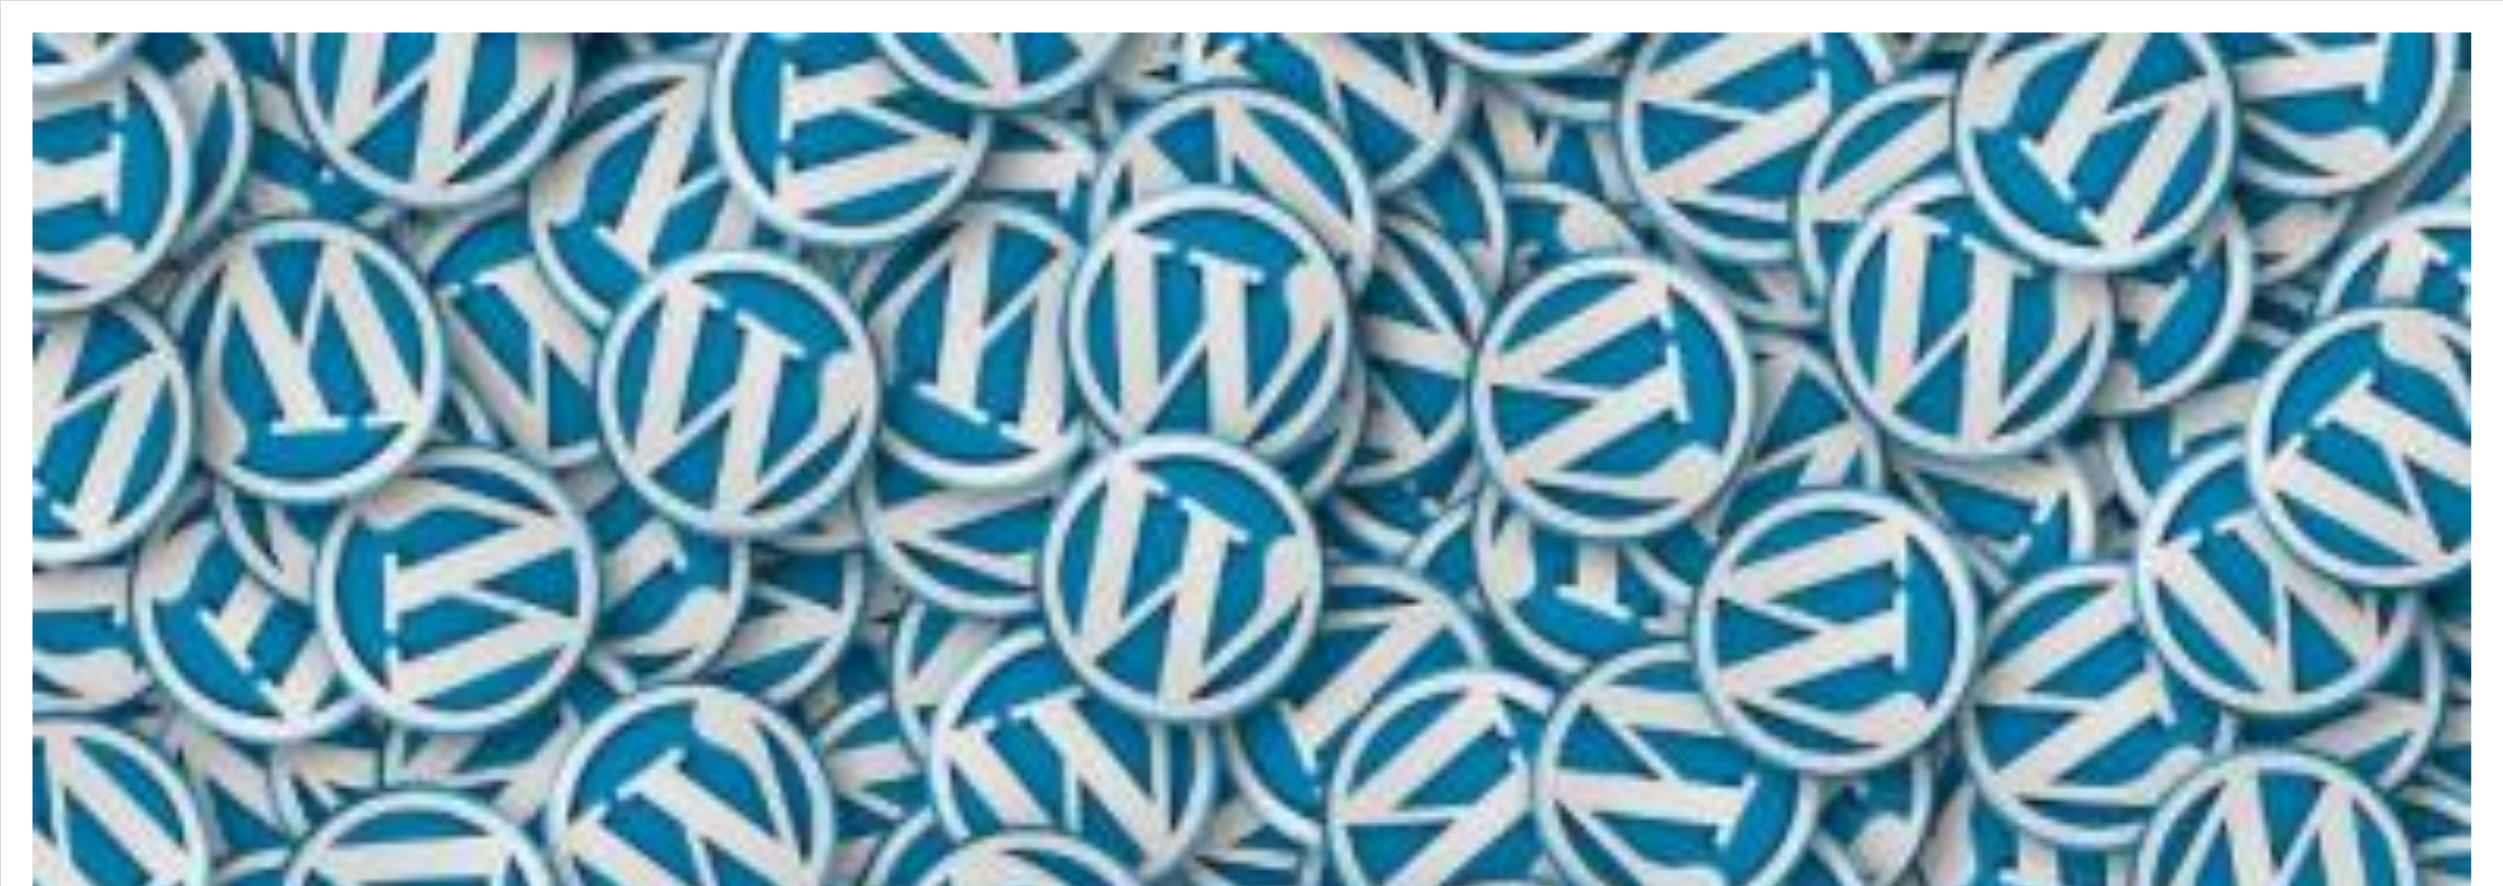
#include <cairo.h>
#include <math.h>
#include <stddef.h>


static void rgb(cairo_t *cr, int r, int g, int b)
{
	cairo_set_source_rgb(cr, r / 255.0, g / 255.0, b / 255.0);
}

static void image(cairo_t *cr, const char *path, double x, double y, double w, double h)
{
	cairo_surface_t *image = cairo_image_surface_create_from_png(path);
	cairo_save(cr);
	cairo_set_source_surface(cr, image, x, y);
	cairo_rectangle(cr, x, y, w, h);
	cairo_fill(cr);
	cairo_restore(cr);
	cairo_surface_destroy(image);
}

static void draw(cairo_t *cr) {
	rgb(cr, 255, 255, 255);
	cairo_paint(cr);
	cairo_rectangle(cr, 0.5, 0.5, 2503, 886);
	rgb(cr, 220, 220, 222);
	cairo_set_line_width(cr, 1);
	cairo_stroke(cr);
	image(cr, "image0.png", 32, 32, 2440, 854);
}

int main(void) {
	cairo_surface_t *surface = cairo_image_surface_create(CAIRO_FORMAT_RGB24, 2503, 886);
	cairo_t *cr = cairo_create(surface);
	cairo_font_options_t *options = cairo_font_options_create();
	cairo_font_options_set_hint_metrics(options, CAIRO_HINT_METRICS_OFF);
	cairo_font_options_set_hint_style(options, CAIRO_HINT_STYLE_NONE);
	cairo_set_font_options(cr, options);
	cairo_set_miter_limit(cr, 4);
	draw(cr);
	cairo_surface_write_to_png(surface, "render.png");
	cairo_font_options_destroy(options);
	cairo_destroy(cr);
	cairo_surface_destroy(surface);
	return 0;
}
